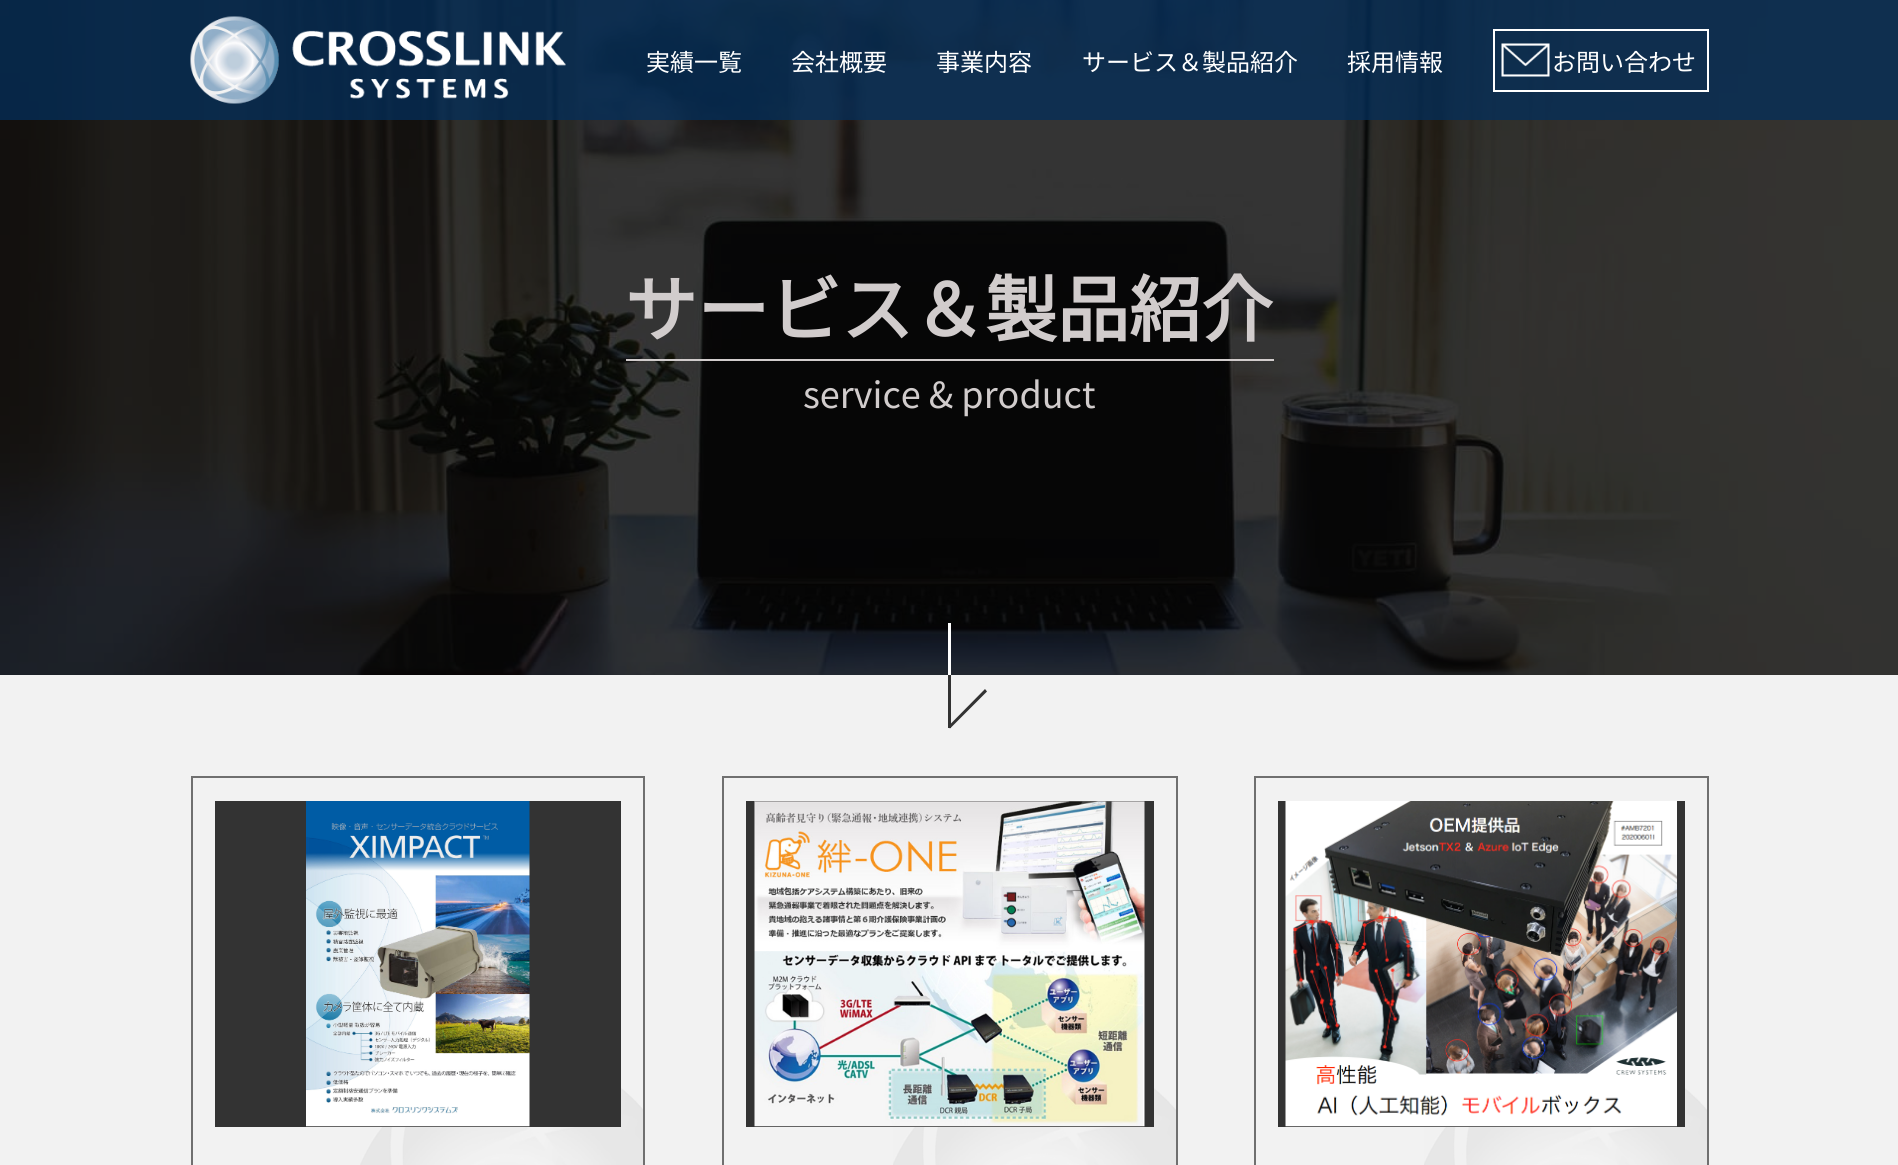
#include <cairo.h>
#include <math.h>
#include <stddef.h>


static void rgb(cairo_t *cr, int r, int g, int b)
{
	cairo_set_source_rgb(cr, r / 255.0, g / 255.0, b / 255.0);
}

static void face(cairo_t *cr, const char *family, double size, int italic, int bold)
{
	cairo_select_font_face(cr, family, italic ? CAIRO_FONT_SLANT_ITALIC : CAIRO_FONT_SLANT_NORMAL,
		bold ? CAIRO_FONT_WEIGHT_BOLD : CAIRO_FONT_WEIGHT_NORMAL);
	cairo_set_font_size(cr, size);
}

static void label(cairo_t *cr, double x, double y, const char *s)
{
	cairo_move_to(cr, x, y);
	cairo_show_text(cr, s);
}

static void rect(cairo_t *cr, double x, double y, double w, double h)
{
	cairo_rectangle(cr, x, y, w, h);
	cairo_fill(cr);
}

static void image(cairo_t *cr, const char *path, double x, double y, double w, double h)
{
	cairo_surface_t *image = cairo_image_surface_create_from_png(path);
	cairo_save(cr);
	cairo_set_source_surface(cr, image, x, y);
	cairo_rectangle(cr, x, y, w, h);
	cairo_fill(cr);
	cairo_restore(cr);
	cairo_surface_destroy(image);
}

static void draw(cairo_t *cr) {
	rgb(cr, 242, 242, 242);
	cairo_paint(cr);
	image(cr, "image2.png", 0, 0, 1898, 675);
	cairo_set_source_rgba(cr, 0.012, 0.18, 0.349, 0.75);
	rect(cr, 0, 0, 1898, 120);
	image(cr, "image0.png", 190, 16, 376, 88);
	face(cr, "Noto Sans JP Thin", 24, 0, 0);
	rgb(cr, 255, 255, 255);
	label(cr, 646, 71, "実績一覧");
	label(cr, 791, 71, "会社概要");
	label(cr, 936, 71, "事業内容");
	label(cr, 1082, 71, "サービス＆製品紹介");
	label(cr, 1347, 71, "採用情報");
	image(cr, "image1.png", 1501, 43, 49, 34);
	cairo_rectangle(cr, 1494, 30, 214, 61);
	cairo_stroke(cr);
	label(cr, 1552, 71, "お問い合わせ");
	rgb(cr, 209, 204, 204);
	rect(cr, 626, 359, 648, 2);
	face(cr, "Noto Sans JP", 72, 0, 1);
	label(cr, 625, 336, "サービス＆製品紹介");
	face(cr, "Noto Sans JP Thin", 36, 0, 0);
	label(cr, 803, 408, "service & product");
	rgb(cr, 255, 255, 255);
	rect(cr, 948, 623, 3, 52);
	rgb(cr, 51, 51, 51);
	rect(cr, 948, 675, 3, 53);
	cairo_new_path(cr);
	cairo_move_to(cr, 985, 689);
	cairo_line_to(cr, 987, 691.5);
	cairo_line_to(cr, 950, 728.5);
	cairo_line_to(cr, 948, 726.5);
	cairo_close_path(cr);
	cairo_fill(cr);
	cairo_rectangle(cr, 192, 777, 452, 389);
	rgb(cr, 112, 112, 112);
	cairo_stroke(cr);
	image(cr, "image3.png", 360, 1087, 283, 78);
	rgb(cr, 51, 51, 51);
	rect(cr, 215, 801, 406, 326);
	image(cr, "image4.png", 306, 801, 224, 326);
	cairo_rectangle(cr, 723, 777, 454, 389);
	rgb(cr, 112, 112, 112);
	cairo_stroke(cr);
	image(cr, "image5.png", 893, 1088, 283, 77);
	rgb(cr, 51, 51, 51);
	rect(cr, 746, 801, 408, 326);
	image(cr, "image6.png", 754, 801, 391, 326);
	cairo_rectangle(cr, 1255, 777, 453, 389);
	rgb(cr, 112, 112, 112);
	cairo_stroke(cr);
	image(cr, "image5.png", 1424, 1088, 283, 77);
	rgb(cr, 51, 51, 51);
	rect(cr, 1278, 801, 407, 326);
	image(cr, "image7.png", 1285, 801, 392, 326);
}

int main(void) {
	cairo_surface_t *surface = cairo_image_surface_create(CAIRO_FORMAT_RGB24, 1898, 1165);
	cairo_t *cr = cairo_create(surface);
	cairo_font_options_t *options = cairo_font_options_create();
	cairo_font_options_set_hint_metrics(options, CAIRO_HINT_METRICS_OFF);
	cairo_font_options_set_hint_style(options, CAIRO_HINT_STYLE_NONE);
	cairo_set_font_options(cr, options);
	cairo_set_miter_limit(cr, 4);
	draw(cr);
	cairo_surface_write_to_png(surface, "render.png");
	cairo_font_options_destroy(options);
	cairo_destroy(cr);
	cairo_surface_destroy(surface);
	return 0;
}
